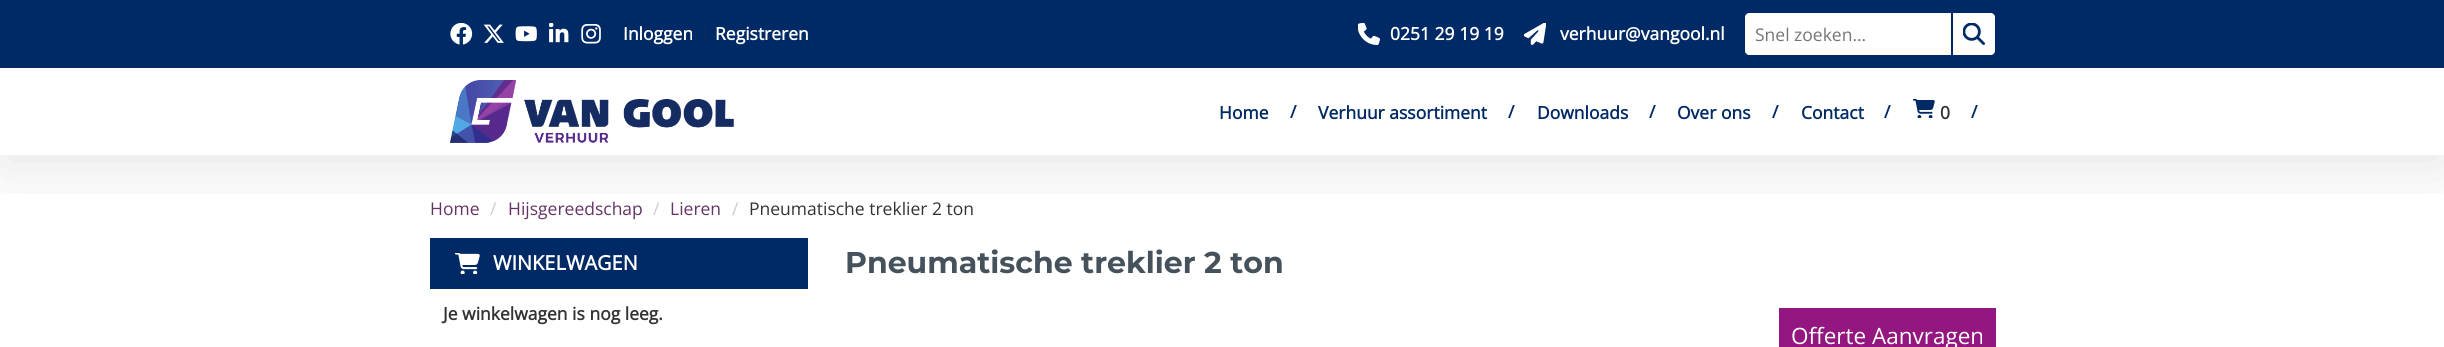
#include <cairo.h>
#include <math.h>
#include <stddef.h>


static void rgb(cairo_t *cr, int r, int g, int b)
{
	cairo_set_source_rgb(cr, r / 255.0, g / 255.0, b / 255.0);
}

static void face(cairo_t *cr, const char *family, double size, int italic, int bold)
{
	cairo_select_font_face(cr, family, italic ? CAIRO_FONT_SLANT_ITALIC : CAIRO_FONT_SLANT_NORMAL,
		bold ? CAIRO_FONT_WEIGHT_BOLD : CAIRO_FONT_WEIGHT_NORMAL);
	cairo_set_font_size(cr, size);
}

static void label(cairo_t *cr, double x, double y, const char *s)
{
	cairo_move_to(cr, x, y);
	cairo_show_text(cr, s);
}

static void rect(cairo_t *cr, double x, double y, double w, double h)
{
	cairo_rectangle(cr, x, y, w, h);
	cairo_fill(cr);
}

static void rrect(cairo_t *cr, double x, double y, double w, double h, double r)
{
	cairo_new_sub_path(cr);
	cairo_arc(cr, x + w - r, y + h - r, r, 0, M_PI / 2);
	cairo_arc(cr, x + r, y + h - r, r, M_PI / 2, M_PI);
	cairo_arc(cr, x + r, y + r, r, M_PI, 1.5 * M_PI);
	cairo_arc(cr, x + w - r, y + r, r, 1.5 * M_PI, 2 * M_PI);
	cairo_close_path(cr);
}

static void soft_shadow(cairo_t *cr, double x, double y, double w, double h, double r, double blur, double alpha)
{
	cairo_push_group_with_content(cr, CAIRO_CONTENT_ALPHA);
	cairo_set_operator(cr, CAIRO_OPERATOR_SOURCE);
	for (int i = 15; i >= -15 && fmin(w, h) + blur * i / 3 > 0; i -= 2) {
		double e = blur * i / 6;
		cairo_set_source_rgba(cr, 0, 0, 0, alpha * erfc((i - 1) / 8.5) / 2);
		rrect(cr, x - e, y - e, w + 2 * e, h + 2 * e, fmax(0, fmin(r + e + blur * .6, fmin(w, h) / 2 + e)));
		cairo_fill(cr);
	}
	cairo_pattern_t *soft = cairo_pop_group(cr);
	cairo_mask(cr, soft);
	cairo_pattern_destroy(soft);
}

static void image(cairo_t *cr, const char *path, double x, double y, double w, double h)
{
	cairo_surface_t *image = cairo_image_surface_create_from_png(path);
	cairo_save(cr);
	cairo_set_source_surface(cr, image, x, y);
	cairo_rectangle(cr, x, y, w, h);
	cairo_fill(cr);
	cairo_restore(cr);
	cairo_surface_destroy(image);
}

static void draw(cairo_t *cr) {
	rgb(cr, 255, 255, 255);
	cairo_paint(cr);
	rgb(cr, 0, 42, 101);
	rect(cr, 430, 238, 378, 51);
	image(cr, "image10.png", 455, 253, 25, 21);
	cairo_save(cr);
	cairo_rectangle(cr, 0, 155, 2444, 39);
	cairo_clip(cr);
	rgb(cr, 0, 0, 0);
	soft_shadow(cr, 0, 13, 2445, 155, 0, 31, 0.1);
	cairo_restore(cr);
	rect(cr, 0, 0, 2444, 68);
	image(cr, "image0.png", 450, 23, 23, 22);
	image(cr, "image1.png", 483, 24, 21, 19);
	image(cr, "image2.png", 515, 26, 22, 16);
	image(cr, "image3.png", 549, 23, 20, 20);
	image(cr, "image4.png", 581, 24, 20, 20);
	face(cr, "Open Sans", 17.5, 0, 1);
	rgb(cr, 255, 255, 255);
	label(cr, 623, 40, "Inloggen");
	rgb(cr, 13, 44, 89);
	rect(cr, 704, 23, 1, 17);
	rgb(cr, 255, 255, 255);
	label(cr, 715, 40, "Registreren");
	image(cr, "image5.png", 1358, 23, 22, 22);
	label(cr, 1390, 40, "0251 29 19 19");
	image(cr, "image6.png", 1524, 23, 22, 22);
	label(cr, 1560, 40, "verhuur@vangool.nl");
	cairo_new_path(cr);
	cairo_move_to(cr, 1749, 13);
	cairo_line_to(cr, 1951, 13);
	cairo_line_to(cr, 1951, 55);
	cairo_line_to(cr, 1749, 55);
	cairo_curve_to(cr, 1747, 55, 1745, 53, 1745, 51);
	cairo_line_to(cr, 1745, 17);
	cairo_curve_to(cr, 1745, 15, 1747, 13, 1749, 13);
	cairo_close_path(cr);
	cairo_fill(cr);
	face(cr, "Open Sans", 17.5, 0, 0);
	rgb(cr, 117, 117, 117);
	label(cr, 1755, 41, "Snel zoeken...");
	rgb(cr, 255, 255, 255);
	cairo_new_path(cr);
	cairo_move_to(cr, 1953, 13);
	cairo_line_to(cr, 1991, 13);
	cairo_curve_to(cr, 1993, 13, 1995, 15, 1995, 17);
	cairo_line_to(cr, 1995, 51);
	cairo_curve_to(cr, 1995, 53, 1993, 55, 1991, 55);
	cairo_line_to(cr, 1953, 55);
	cairo_close_path(cr);
	cairo_fill(cr);
	image(cr, "image7.png", 1963, 23, 22, 22);
	image(cr, "image8.png", 450, 80, 284, 63);
	face(cr, "Open Sans", 17.5, 0, 1);
	rgb(cr, 0, 42, 101);
	label(cr, 1219, 119, "Home");
	label(cr, 1290, 118, "/");
	label(cr, 1318, 119, "Verhuur assortiment");
	label(cr, 1508, 118, "/");
	label(cr, 1537, 119, "Downloads");
	label(cr, 1649, 118, "/");
	label(cr, 1677, 119, "Over ons");
	label(cr, 1772, 118, "/");
	label(cr, 1801, 119, "Contact");
	label(cr, 1884, 118, "/");
	image(cr, "image9.png", 1913, 99, 22, 19);
	rgb(cr, 51, 51, 51);
	label(cr, 1940, 119, "0");
	rgb(cr, 0, 42, 101);
	label(cr, 1971, 118, "/");
	face(cr, "Open Sans", 17.5, 0, 0);
	rgb(cr, 102, 51, 102);
	label(cr, 430, 215, "Home");
	rgb(cr, 204, 204, 204);
	label(cr, 490, 215, "/");
	rgb(cr, 102, 51, 102);
	label(cr, 508, 215, "Hijsgereedschap");
	rgb(cr, 204, 204, 204);
	label(cr, 653, 215, "/");
	rgb(cr, 102, 51, 102);
	label(cr, 670, 215, "Lieren");
	rgb(cr, 204, 204, 204);
	label(cr, 732, 215, "/");
	rgb(cr, 51, 51, 51);
	label(cr, 749, 215, "Pneumatische treklier 2 ton");
	face(cr, "Open Sans", 20, 0, 1);
	rgb(cr, 255, 255, 255);
	label(cr, 493, 270, "WINKELWAGEN");
	face(cr, "Open Sans", 17.5, 0, 1);
	rgb(cr, 51, 51, 51);
	label(cr, 443, 320, "Je winkelwagen is nog leeg.");
	face(cr, "Montserrat", 30, 0, 1);
	rgb(cr, 70, 82, 91);
	label(cr, 845, 273, "Pneumatische treklier 2 ton");
	rgb(cr, 148, 22, 128);
	rect(cr, 1779, 308, 217, 39);
	face(cr, "Open Sans", 22.5, 0, 0);
	rgb(cr, 255, 255, 255);
	label(cr, 1791, 344, "Offerte Aanvragen");
}

int main(void) {
	cairo_surface_t *surface = cairo_image_surface_create(CAIRO_FORMAT_RGB24, 2444, 347);
	cairo_t *cr = cairo_create(surface);
	cairo_font_options_t *options = cairo_font_options_create();
	cairo_font_options_set_hint_metrics(options, CAIRO_HINT_METRICS_OFF);
	cairo_font_options_set_hint_style(options, CAIRO_HINT_STYLE_NONE);
	cairo_set_font_options(cr, options);
	cairo_set_miter_limit(cr, 4);
	draw(cr);
	cairo_surface_write_to_png(surface, "render.png");
	cairo_font_options_destroy(options);
	cairo_destroy(cr);
	cairo_surface_destroy(surface);
	return 0;
}
